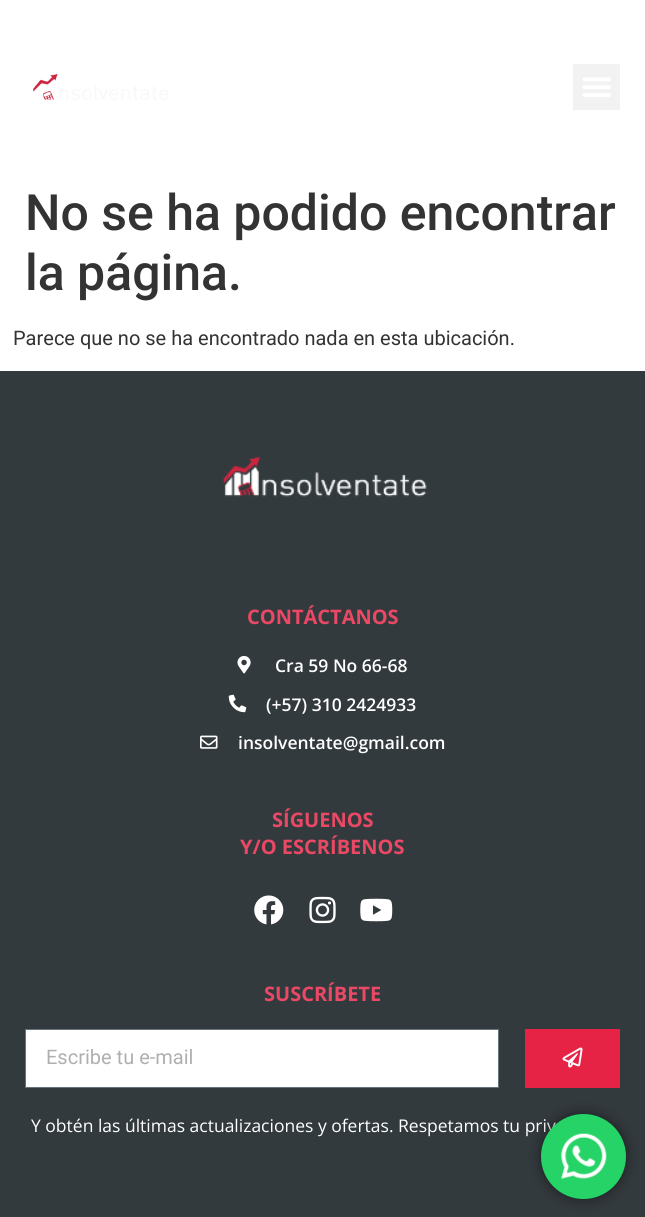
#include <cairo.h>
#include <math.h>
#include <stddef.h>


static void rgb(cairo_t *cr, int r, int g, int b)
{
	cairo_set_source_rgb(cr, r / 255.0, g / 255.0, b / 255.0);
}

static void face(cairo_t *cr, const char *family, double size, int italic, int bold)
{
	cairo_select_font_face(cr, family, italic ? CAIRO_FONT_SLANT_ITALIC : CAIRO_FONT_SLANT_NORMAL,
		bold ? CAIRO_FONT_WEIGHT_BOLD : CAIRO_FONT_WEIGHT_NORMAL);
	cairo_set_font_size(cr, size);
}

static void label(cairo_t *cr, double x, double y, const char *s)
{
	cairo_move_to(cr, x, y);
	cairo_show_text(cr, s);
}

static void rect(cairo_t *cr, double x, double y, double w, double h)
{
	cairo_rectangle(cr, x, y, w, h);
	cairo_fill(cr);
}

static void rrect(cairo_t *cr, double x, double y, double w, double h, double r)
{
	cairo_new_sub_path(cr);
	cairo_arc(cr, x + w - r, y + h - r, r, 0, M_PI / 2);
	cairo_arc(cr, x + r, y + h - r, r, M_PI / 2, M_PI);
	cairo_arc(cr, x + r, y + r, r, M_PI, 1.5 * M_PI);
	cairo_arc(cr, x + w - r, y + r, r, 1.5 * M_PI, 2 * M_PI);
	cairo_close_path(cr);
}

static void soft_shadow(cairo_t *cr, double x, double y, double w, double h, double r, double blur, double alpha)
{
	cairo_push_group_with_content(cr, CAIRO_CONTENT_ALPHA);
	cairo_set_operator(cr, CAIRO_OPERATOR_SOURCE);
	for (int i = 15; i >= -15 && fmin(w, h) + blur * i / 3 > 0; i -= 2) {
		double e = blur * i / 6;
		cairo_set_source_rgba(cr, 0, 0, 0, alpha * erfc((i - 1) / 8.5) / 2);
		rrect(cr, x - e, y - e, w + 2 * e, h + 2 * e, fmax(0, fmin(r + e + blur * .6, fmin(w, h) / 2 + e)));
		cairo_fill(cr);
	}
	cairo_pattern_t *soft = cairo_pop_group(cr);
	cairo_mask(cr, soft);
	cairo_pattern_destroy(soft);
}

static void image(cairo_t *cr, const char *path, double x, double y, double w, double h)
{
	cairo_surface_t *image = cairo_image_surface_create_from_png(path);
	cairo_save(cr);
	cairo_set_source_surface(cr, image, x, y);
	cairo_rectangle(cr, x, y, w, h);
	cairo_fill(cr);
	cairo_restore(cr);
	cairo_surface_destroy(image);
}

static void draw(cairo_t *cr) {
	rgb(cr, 255, 255, 255);
	cairo_paint(cr);
	image(cr, "image0.png", 33, 74, 135, 26);
	rgb(cr, 242, 242, 242);
	rect(cr, 573, 64, 47, 46);
	image(cr, "image1.png", 582, 77, 29, 20);
	face(cr, "Roboto Medium", 50, 0, 0);
	rgb(cr, 51, 51, 51);
	label(cr, 25, 230, "No se ha podido encontrar");
	label(cr, 25, 290, "la página.");
	face(cr, "Roboto", 20, 0, 0);
	label(cr, 13, 345, "Parece que no se ha encontrado nada en esta ubicación.");
	rgb(cr, 51, 58, 62);
	rect(cr, 0, 371, 645, 846);
	image(cr, "image2.png", 222, 456, 205, 41);
	face(cr, "Open Sans", 20, 0, 1);
	rgb(cr, 234, 72, 100);
	label(cr, 247, 624, "CONTÁCTANOS");
	image(cr, "image3.png", 237, 655, 14, 19);
	face(cr, "Open Sans SemiBold", 17.5, 0, 0);
	rgb(cr, 255, 255, 255);
	label(cr, 275, 672, "Cra 59 No 66-68");
	image(cr, "image4.png", 228, 694, 19, 19);
	label(cr, 266, 711, "(+57) 310 2424933");
	image(cr, "image5.png", 200, 735, 18, 14);
	label(cr, 238, 749, "insolventate@gmail.com");
	face(cr, "Open Sans", 20, 0, 1);
	rgb(cr, 234, 72, 100);
	label(cr, 272, 827, "SÍGUENOS");
	label(cr, 240, 854, "Y/O ESCRÍBENOS");
	image(cr, "image6.png", 254, 895, 30, 30);
	image(cr, "image7.png", 309, 896, 27, 28);
	image(cr, "image8.png", 360, 898, 33, 24);
	label(cr, 264, 1001, "SUSCRÍBETE");
	rgb(cr, 255, 255, 255);
	cairo_rectangle(cr, 25.5, 1029.5, 473, 58);
	cairo_fill_preserve(cr);
	rgb(cr, 105, 114, 125);
	cairo_set_line_width(cr, 1);
	cairo_stroke(cr);
	face(cr, "Roboto", 20, 0, 0);
	rgb(cr, 175, 175, 175);
	label(cr, 46, 1064, "Escribe tu e-mail");
	rgb(cr, 230, 35, 68);
	rect(cr, 525, 1029, 95, 59);
	image(cr, "image9.png", 562, 1047, 21, 21);
	face(cr, "Open Sans", 17.5, 0, 0);
	rgb(cr, 255, 255, 255);
	label(cr, 31, 1132, "Y obtén las últimas actualizaciones y ofertas. Respetamos tu priv");
	rgb(cr, 0, 0, 0);
	soft_shadow(cr, 541, 1114, 85, 85, 42.5, 7, 0.5);
	rgb(cr, 37, 211, 102);
	cairo_arc(cr, 583.5, 1156.5, 42.5, 0, 2 * M_PI);
	cairo_fill(cr);
	image(cr, "image10.png", 561, 1133, 46, 46);
}

int main(void) {
	cairo_surface_t *surface = cairo_image_surface_create(CAIRO_FORMAT_RGB24, 645, 1217);
	cairo_t *cr = cairo_create(surface);
	cairo_font_options_t *options = cairo_font_options_create();
	cairo_font_options_set_hint_metrics(options, CAIRO_HINT_METRICS_OFF);
	cairo_font_options_set_hint_style(options, CAIRO_HINT_STYLE_NONE);
	cairo_set_font_options(cr, options);
	cairo_set_miter_limit(cr, 4);
	draw(cr);
	cairo_surface_write_to_png(surface, "render.png");
	cairo_font_options_destroy(options);
	cairo_destroy(cr);
	cairo_surface_destroy(surface);
	return 0;
}
